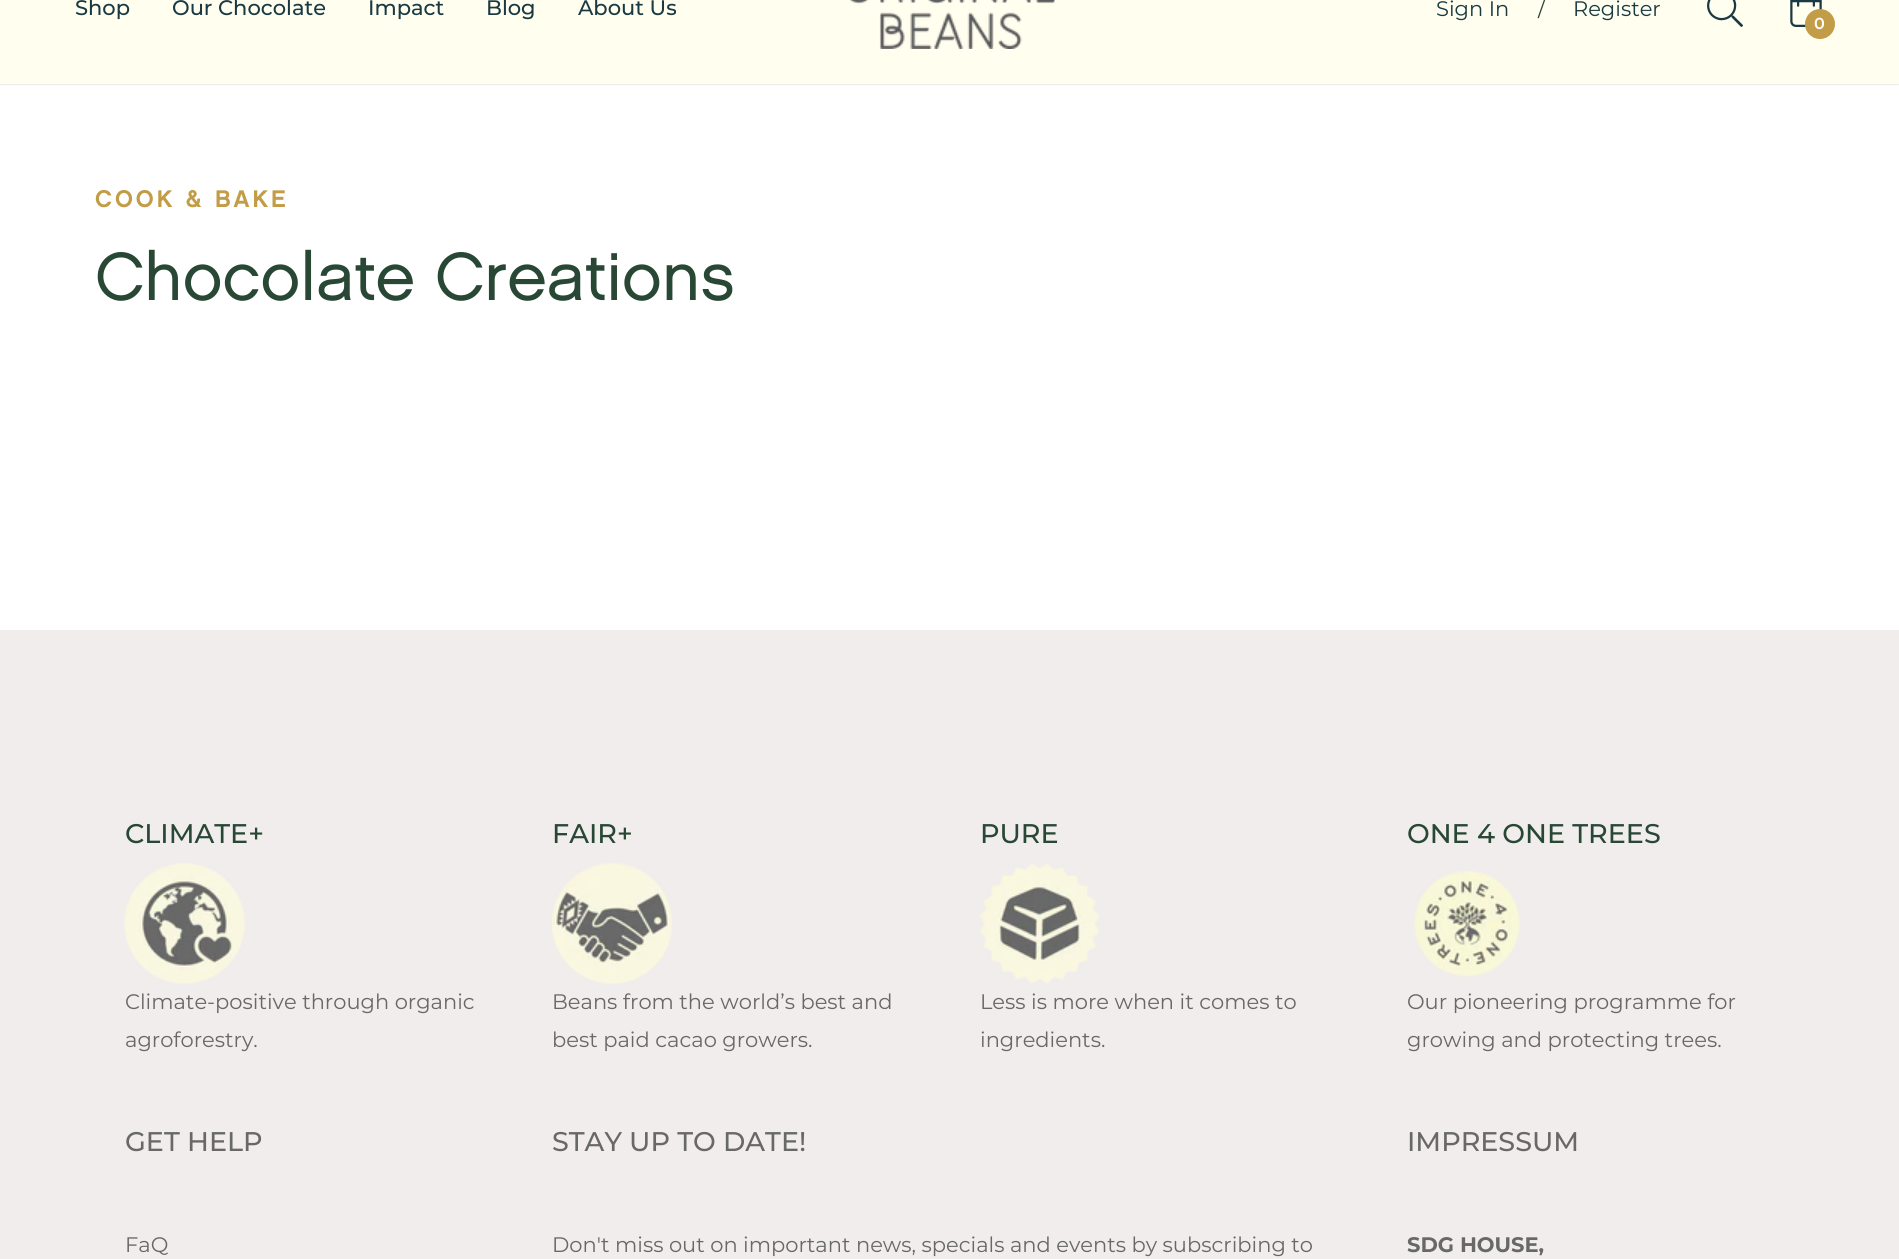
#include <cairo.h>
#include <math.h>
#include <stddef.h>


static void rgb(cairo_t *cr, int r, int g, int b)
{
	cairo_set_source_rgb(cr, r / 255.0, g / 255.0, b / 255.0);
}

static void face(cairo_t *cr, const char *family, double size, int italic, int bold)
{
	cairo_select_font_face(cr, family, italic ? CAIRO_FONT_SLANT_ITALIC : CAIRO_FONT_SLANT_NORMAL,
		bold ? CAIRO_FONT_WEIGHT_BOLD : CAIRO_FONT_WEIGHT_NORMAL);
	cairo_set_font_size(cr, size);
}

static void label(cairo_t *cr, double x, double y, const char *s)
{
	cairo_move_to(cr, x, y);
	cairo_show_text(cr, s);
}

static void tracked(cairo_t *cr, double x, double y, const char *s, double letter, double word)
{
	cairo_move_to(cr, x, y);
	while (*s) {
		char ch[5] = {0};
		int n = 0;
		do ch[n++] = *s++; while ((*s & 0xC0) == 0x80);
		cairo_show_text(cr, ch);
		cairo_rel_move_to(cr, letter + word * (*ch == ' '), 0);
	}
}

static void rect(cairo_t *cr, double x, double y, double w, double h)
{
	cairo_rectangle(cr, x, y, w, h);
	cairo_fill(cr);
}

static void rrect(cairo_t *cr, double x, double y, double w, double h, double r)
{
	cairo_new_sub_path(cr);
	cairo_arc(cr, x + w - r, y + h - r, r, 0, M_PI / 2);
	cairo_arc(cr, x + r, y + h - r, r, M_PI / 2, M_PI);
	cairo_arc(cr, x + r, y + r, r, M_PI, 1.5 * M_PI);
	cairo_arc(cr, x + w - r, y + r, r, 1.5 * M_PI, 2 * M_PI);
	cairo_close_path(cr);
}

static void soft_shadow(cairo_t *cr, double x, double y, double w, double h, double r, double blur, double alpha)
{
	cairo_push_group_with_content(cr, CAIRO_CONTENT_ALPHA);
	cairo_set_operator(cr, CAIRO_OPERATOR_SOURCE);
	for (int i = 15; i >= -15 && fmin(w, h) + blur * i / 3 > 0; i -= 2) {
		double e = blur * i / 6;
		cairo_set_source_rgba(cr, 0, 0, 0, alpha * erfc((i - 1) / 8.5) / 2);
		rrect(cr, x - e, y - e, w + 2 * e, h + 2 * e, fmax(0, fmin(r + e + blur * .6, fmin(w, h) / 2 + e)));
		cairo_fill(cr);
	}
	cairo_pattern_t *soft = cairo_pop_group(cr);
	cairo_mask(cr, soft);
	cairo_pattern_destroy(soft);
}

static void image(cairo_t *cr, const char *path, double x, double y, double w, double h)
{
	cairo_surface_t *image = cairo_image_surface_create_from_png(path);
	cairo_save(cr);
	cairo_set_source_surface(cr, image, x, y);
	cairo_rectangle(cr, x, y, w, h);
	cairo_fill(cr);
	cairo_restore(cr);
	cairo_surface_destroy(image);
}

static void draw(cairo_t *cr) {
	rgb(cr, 255, 255, 255);
	cairo_paint(cr);
	rgb(cr, 0, 0, 0);
	soft_shadow(cr, 0, -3, 1899, 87, 0, 1, 0.2);
	rgb(cr, 255, 254, 239);
	rect(cr, 0, 0, 1899, 84);
	face(cr, "Montserrat Medium", 21, 0, 0);
	rgb(cr, 25, 58, 67);
	label(cr, 75, 15, "Shop");
	label(cr, 172, 15, "Our Chocolate");
	label(cr, 368, 15, "Impact");
	label(cr, 486, 15, "Blog");
	label(cr, 578, 15, "About Us");
	image(cr, "image0.png", 850, 0, 205, 49);
	face(cr, "Montserrat", 21, 0, 0);
	label(cr, 1436, 16, "Sign In");
	rgb(cr, 40, 71, 52);
	label(cr, 1538, 16, "/");
	rgb(cr, 25, 58, 67);
	label(cr, 1573, 16, "Register");
	image(cr, "image1.png", 1707, 0, 36, 27);
	image(cr, "image2.png", 1790, 0, 32, 27);
	rgb(cr, 194, 156, 70);
	cairo_arc(cr, 1820, 24, 15, 0, 2 * M_PI);
	cairo_fill(cr);
	face(cr, "Montserrat SemiBold", 16, 0, 0);
	rgb(cr, 255, 255, 255);
	label(cr, 1814, 29, "0");
	face(cr, "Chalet", 24, 0, 1);
	rgb(cr, 194, 156, 70);
	tracked(cr, 95, 207, "COOK & BAKE", 3, 0);
	face(cr, "Chalet Medium", 67.5, 0, 0);
	rgb(cr, 40, 71, 52);
	label(cr, 95, 300, "Chocolate Creations");
	rgb(cr, 241, 237, 236);
	rect(cr, 0, 630, 1899, 629);
	face(cr, "Montserrat Medium", 27, 0, 0);
	rgb(cr, 40, 71, 52);
	label(cr, 125, 843, "CLIMATE+");
	image(cr, "image3.png", 124, 863, 121, 121);
	face(cr, "Montserrat", 21, 0, 0);
	rgb(cr, 104, 104, 105);
	label(cr, 125, 1009, "Climate-positive through organic");
	label(cr, 125, 1047, "agroforestry.");
	face(cr, "Montserrat Medium", 27, 0, 0);
	rgb(cr, 40, 71, 52);
	label(cr, 552, 843, "FAIR+");
	image(cr, "image4.png", 552, 863, 120, 121);
	face(cr, "Montserrat", 21, 0, 0);
	rgb(cr, 104, 104, 105);
	label(cr, 552, 1009, "Beans from the world’s best and");
	label(cr, 552, 1047, "best paid cacao growers.");
	face(cr, "Montserrat Medium", 27, 0, 0);
	rgb(cr, 40, 71, 52);
	label(cr, 980, 843, "PURE");
	image(cr, "image5.png", 979, 863, 121, 121);
	face(cr, "Montserrat", 21, 0, 0);
	rgb(cr, 104, 104, 105);
	label(cr, 980, 1009, "Less is more when it comes to");
	label(cr, 980, 1047, "ingredients.");
	face(cr, "Montserrat Medium", 27, 0, 0);
	rgb(cr, 40, 71, 52);
	label(cr, 1407, 843, "ONE 4 ONE TREES");
	image(cr, "image6.png", 1414, 871, 106, 106);
	face(cr, "Montserrat", 21, 0, 0);
	rgb(cr, 104, 104, 105);
	label(cr, 1407, 1009, "Our pioneering programme for");
	label(cr, 1407, 1047, "growing and protecting trees.");
	face(cr, "Montserrat Medium", 27, 0, 0);
	label(cr, 125, 1151, "GET HELP");
	face(cr, "Montserrat", 21, 0, 0);
	label(cr, 125, 1252, "FaQ");
	face(cr, "Montserrat Medium", 27, 0, 0);
	label(cr, 552, 1151, "STAY UP TO DATE!");
	face(cr, "Montserrat", 21, 0, 0);
	label(cr, 552, 1252, "Don't miss out on important news, specials and events by subscribing to");
	face(cr, "Montserrat Medium", 27, 0, 0);
	label(cr, 1407, 1151, "IMPRESSUM");
	face(cr, "Montserrat", 21, 0, 1);
	label(cr, 1407, 1252, "SDG HOUSE,");
}

int main(void) {
	cairo_surface_t *surface = cairo_image_surface_create(CAIRO_FORMAT_RGB24, 1899, 1259);
	cairo_t *cr = cairo_create(surface);
	cairo_font_options_t *options = cairo_font_options_create();
	cairo_font_options_set_hint_metrics(options, CAIRO_HINT_METRICS_OFF);
	cairo_font_options_set_hint_style(options, CAIRO_HINT_STYLE_NONE);
	cairo_set_font_options(cr, options);
	cairo_set_miter_limit(cr, 4);
	draw(cr);
	cairo_surface_write_to_png(surface, "render.png");
	cairo_font_options_destroy(options);
	cairo_destroy(cr);
	cairo_surface_destroy(surface);
	return 0;
}
